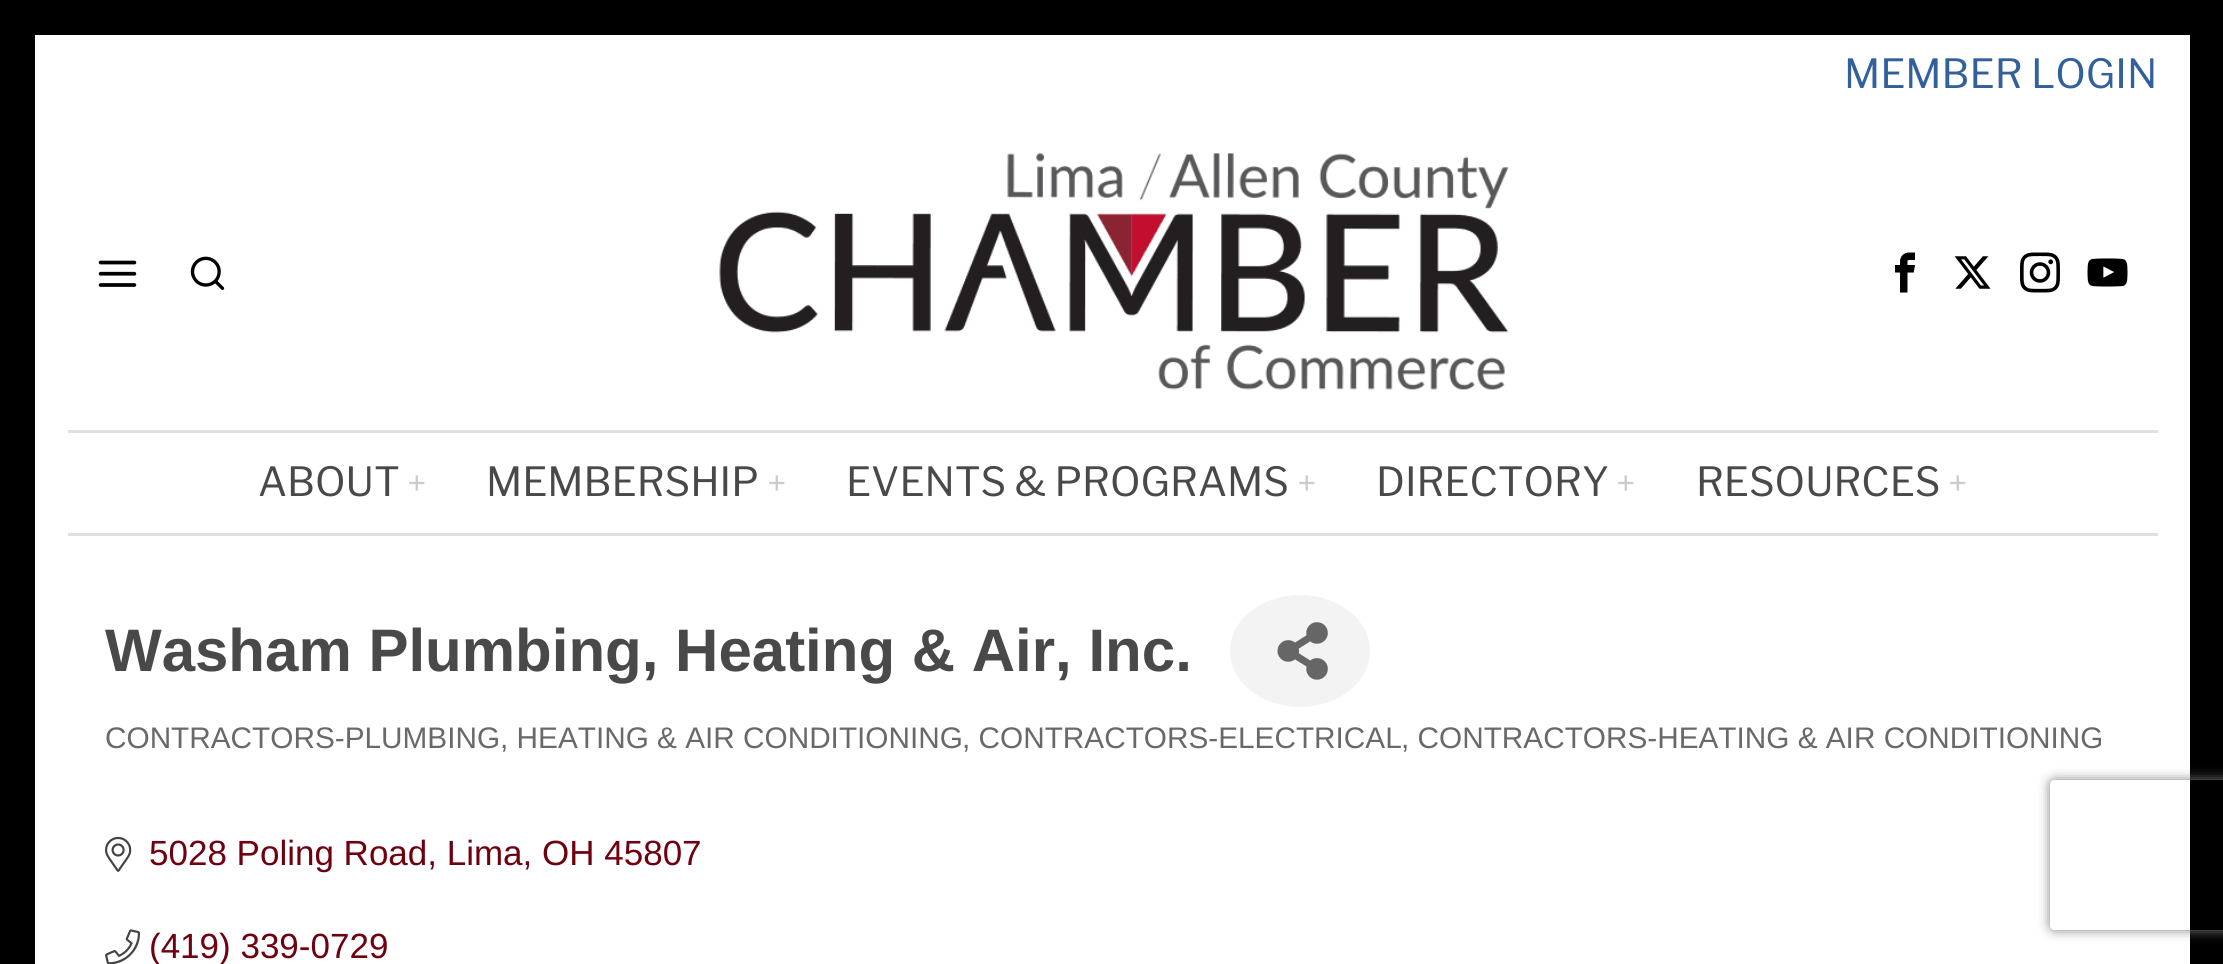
#include <cairo.h>
#include <math.h>
#include <stddef.h>


static void rgb(cairo_t *cr, int r, int g, int b)
{
	cairo_set_source_rgb(cr, r / 255.0, g / 255.0, b / 255.0);
}

static void face(cairo_t *cr, const char *family, double size, int italic, int bold)
{
	cairo_select_font_face(cr, family, italic ? CAIRO_FONT_SLANT_ITALIC : CAIRO_FONT_SLANT_NORMAL,
		bold ? CAIRO_FONT_WEIGHT_BOLD : CAIRO_FONT_WEIGHT_NORMAL);
	cairo_set_font_size(cr, size);
}

static void label(cairo_t *cr, double x, double y, const char *s)
{
	cairo_move_to(cr, x, y);
	cairo_show_text(cr, s);
}

static void rect(cairo_t *cr, double x, double y, double w, double h)
{
	cairo_rectangle(cr, x, y, w, h);
	cairo_fill(cr);
}

static void rrect(cairo_t *cr, double x, double y, double w, double h, double r)
{
	cairo_new_sub_path(cr);
	cairo_arc(cr, x + w - r, y + h - r, r, 0, M_PI / 2);
	cairo_arc(cr, x + r, y + h - r, r, M_PI / 2, M_PI);
	cairo_arc(cr, x + r, y + r, r, M_PI, 1.5 * M_PI);
	cairo_arc(cr, x + w - r, y + r, r, 1.5 * M_PI, 2 * M_PI);
	cairo_close_path(cr);
}

static void soft_shadow(cairo_t *cr, double x, double y, double w, double h, double r, double blur, double alpha)
{
	cairo_push_group_with_content(cr, CAIRO_CONTENT_ALPHA);
	cairo_set_operator(cr, CAIRO_OPERATOR_SOURCE);
	for (int i = 15; i >= -15 && fmin(w, h) + blur * i / 3 > 0; i -= 2) {
		double e = blur * i / 6;
		cairo_set_source_rgba(cr, 0, 0, 0, alpha * erfc((i - 1) / 8.5) / 2);
		rrect(cr, x - e, y - e, w + 2 * e, h + 2 * e, fmax(0, fmin(r + e + blur * .6, fmin(w, h) / 2 + e)));
		cairo_fill(cr);
	}
	cairo_pattern_t *soft = cairo_pop_group(cr);
	cairo_mask(cr, soft);
	cairo_pattern_destroy(soft);
}

static void image(cairo_t *cr, const char *path, double x, double y, double w, double h)
{
	cairo_surface_t *image = cairo_image_surface_create_from_png(path);
	cairo_save(cr);
	cairo_set_source_surface(cr, image, x, y);
	cairo_rectangle(cr, x, y, w, h);
	cairo_fill(cr);
	cairo_restore(cr);
	cairo_surface_destroy(image);
}

static void draw(cairo_t *cr) {
	rgb(cr, 255, 255, 255);
	cairo_paint(cr);
	cairo_rectangle(cr, 17.5, 17.5, 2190, 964);
	rgb(cr, 0, 0, 0);
	cairo_set_line_width(cr, 35);
	cairo_stroke(cr);
	face(cr, "Libre Franklin", 40, 0, 0);
	rgb(cr, 49, 96, 156);
	label(cr, 1844, 88, "MEMBER LOGIN");
	image(cr, "image0.png", 98, 260, 39, 27);
	image(cr, "image1.png", 190, 256, 35, 34);
	image(cr, "image2.png", 719, 153, 790, 237);
	image(cr, "image3.png", 1895, 252, 20, 41);
	image(cr, "image4.png", 1954, 256, 37, 33);
	image(cr, "image5.png", 2020, 252, 40, 41);
	image(cr, "image6.png", 2087, 258, 41, 29);
	rgb(cr, 224, 224, 224);
	rect(cr, 68, 430, 2090, 3);
	rect(cr, 68, 533, 2090, 3);
	rgb(cr, 73, 73, 73);
	label(cr, 258, 496, "ABOUT");
	face(cr, "Libre Franklin", 35, 0, 0);
	rgb(cr, 204, 204, 204);
	label(cr, 407, 496, "+");
	face(cr, "Libre Franklin", 40, 0, 0);
	rgb(cr, 73, 73, 73);
	label(cr, 486, 496, "MEMBERSHIP");
	face(cr, "Libre Franklin", 35, 0, 0);
	rgb(cr, 204, 204, 204);
	label(cr, 767, 496, "+");
	face(cr, "Libre Franklin", 40, 0, 0);
	rgb(cr, 73, 73, 73);
	label(cr, 846, 496, "EVENTS & PROGRAMS");
	face(cr, "Libre Franklin", 35, 0, 0);
	rgb(cr, 204, 204, 204);
	label(cr, 1297, 496, "+");
	face(cr, "Libre Franklin", 40, 0, 0);
	rgb(cr, 73, 73, 73);
	label(cr, 1376, 496, "DIRECTORY");
	face(cr, "Libre Franklin", 35, 0, 0);
	rgb(cr, 204, 204, 204);
	label(cr, 1616, 496, "+");
	face(cr, "Libre Franklin", 40, 0, 0);
	rgb(cr, 73, 73, 73);
	label(cr, 1696, 496, "RESOURCES");
	face(cr, "Libre Franklin", 35, 0, 0);
	rgb(cr, 204, 204, 204);
	label(cr, 1948, 496, "+");
	face(cr, "Liberation Sans", 60, 0, 1);
	rgb(cr, 73, 73, 73);
	label(cr, 105, 671, "Washam Plumbing, Heating & Air, Inc.");
	rgb(cr, 243, 243, 243);
	cairo_new_path(cr);
	cairo_move_to(cr, 1300, 595);
	cairo_curve_to(cr, 1338.5, 595, 1370, 620, 1370, 651);
	cairo_curve_to(cr, 1370, 682, 1338.5, 707, 1300, 707);
	cairo_curve_to(cr, 1261.5, 707, 1230, 682, 1230, 651);
	cairo_curve_to(cr, 1230, 620, 1261.5, 595, 1300, 595);
	cairo_close_path(cr);
	cairo_fill(cr);
	image(cr, "image7.png", 1277, 622, 51, 58);
	face(cr, "Liberation Sans", 29.75, 0, 0);
	rgb(cr, 105, 105, 105);
	label(cr, 105, 748, "CONTRACTORS-PLUMBING, HEATING & AIR CONDITIONING");
	label(cr, 962, 748, ", CONTRACTORS-ELECTRICAL");
	label(cr, 1401, 748, ", CONTRACTORS-HEATING & AIR CONDITIONING");
	image(cr, "image8.png", 105, 836, 27, 36);
	face(cr, "Liberation Sans", 35, 0, 0);
	rgb(cr, 111, 0, 16);
	label(cr, 149, 865, "5028 Poling Road, Lima, OH 45807");
	image(cr, "image9.png", 105, 929, 36, 35);
	label(cr, 149, 958, "(419) 339-0729");
	cairo_save(cr);
	cairo_set_fill_rule(cr, CAIRO_FILL_RULE_EVEN_ODD);
	cairo_new_path(cr);
	cairo_move_to(cr, 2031, 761);
	cairo_line_to(cr, 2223, 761);
	cairo_line_to(cr, 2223, 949);
	cairo_line_to(cr, 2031, 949);
	cairo_close_path(cr);
	cairo_move_to(cr, 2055, 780);
	cairo_line_to(cr, 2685, 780);
	cairo_curve_to(cr, 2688, 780, 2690, 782, 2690, 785);
	cairo_line_to(cr, 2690, 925);
	cairo_curve_to(cr, 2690, 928, 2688, 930, 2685, 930);
	cairo_line_to(cr, 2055, 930);
	cairo_curve_to(cr, 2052, 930, 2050, 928, 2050, 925);
	cairo_line_to(cr, 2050, 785);
	cairo_curve_to(cr, 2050, 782, 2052, 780, 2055, 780);
	cairo_close_path(cr);
	cairo_clip(cr);
	rgb(cr, 128, 128, 128);
	soft_shadow(cr, 2050, 780, 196, 150, 5, 6, 1);
	cairo_restore(cr);
}

int main(void) {
	cairo_surface_t *surface = cairo_image_surface_create(CAIRO_FORMAT_RGB24, 2223, 964);
	cairo_t *cr = cairo_create(surface);
	cairo_font_options_t *options = cairo_font_options_create();
	cairo_font_options_set_hint_metrics(options, CAIRO_HINT_METRICS_OFF);
	cairo_font_options_set_hint_style(options, CAIRO_HINT_STYLE_NONE);
	cairo_set_font_options(cr, options);
	cairo_set_miter_limit(cr, 4);
	draw(cr);
	cairo_surface_write_to_png(surface, "render.png");
	cairo_font_options_destroy(options);
	cairo_destroy(cr);
	cairo_surface_destroy(surface);
	return 0;
}
